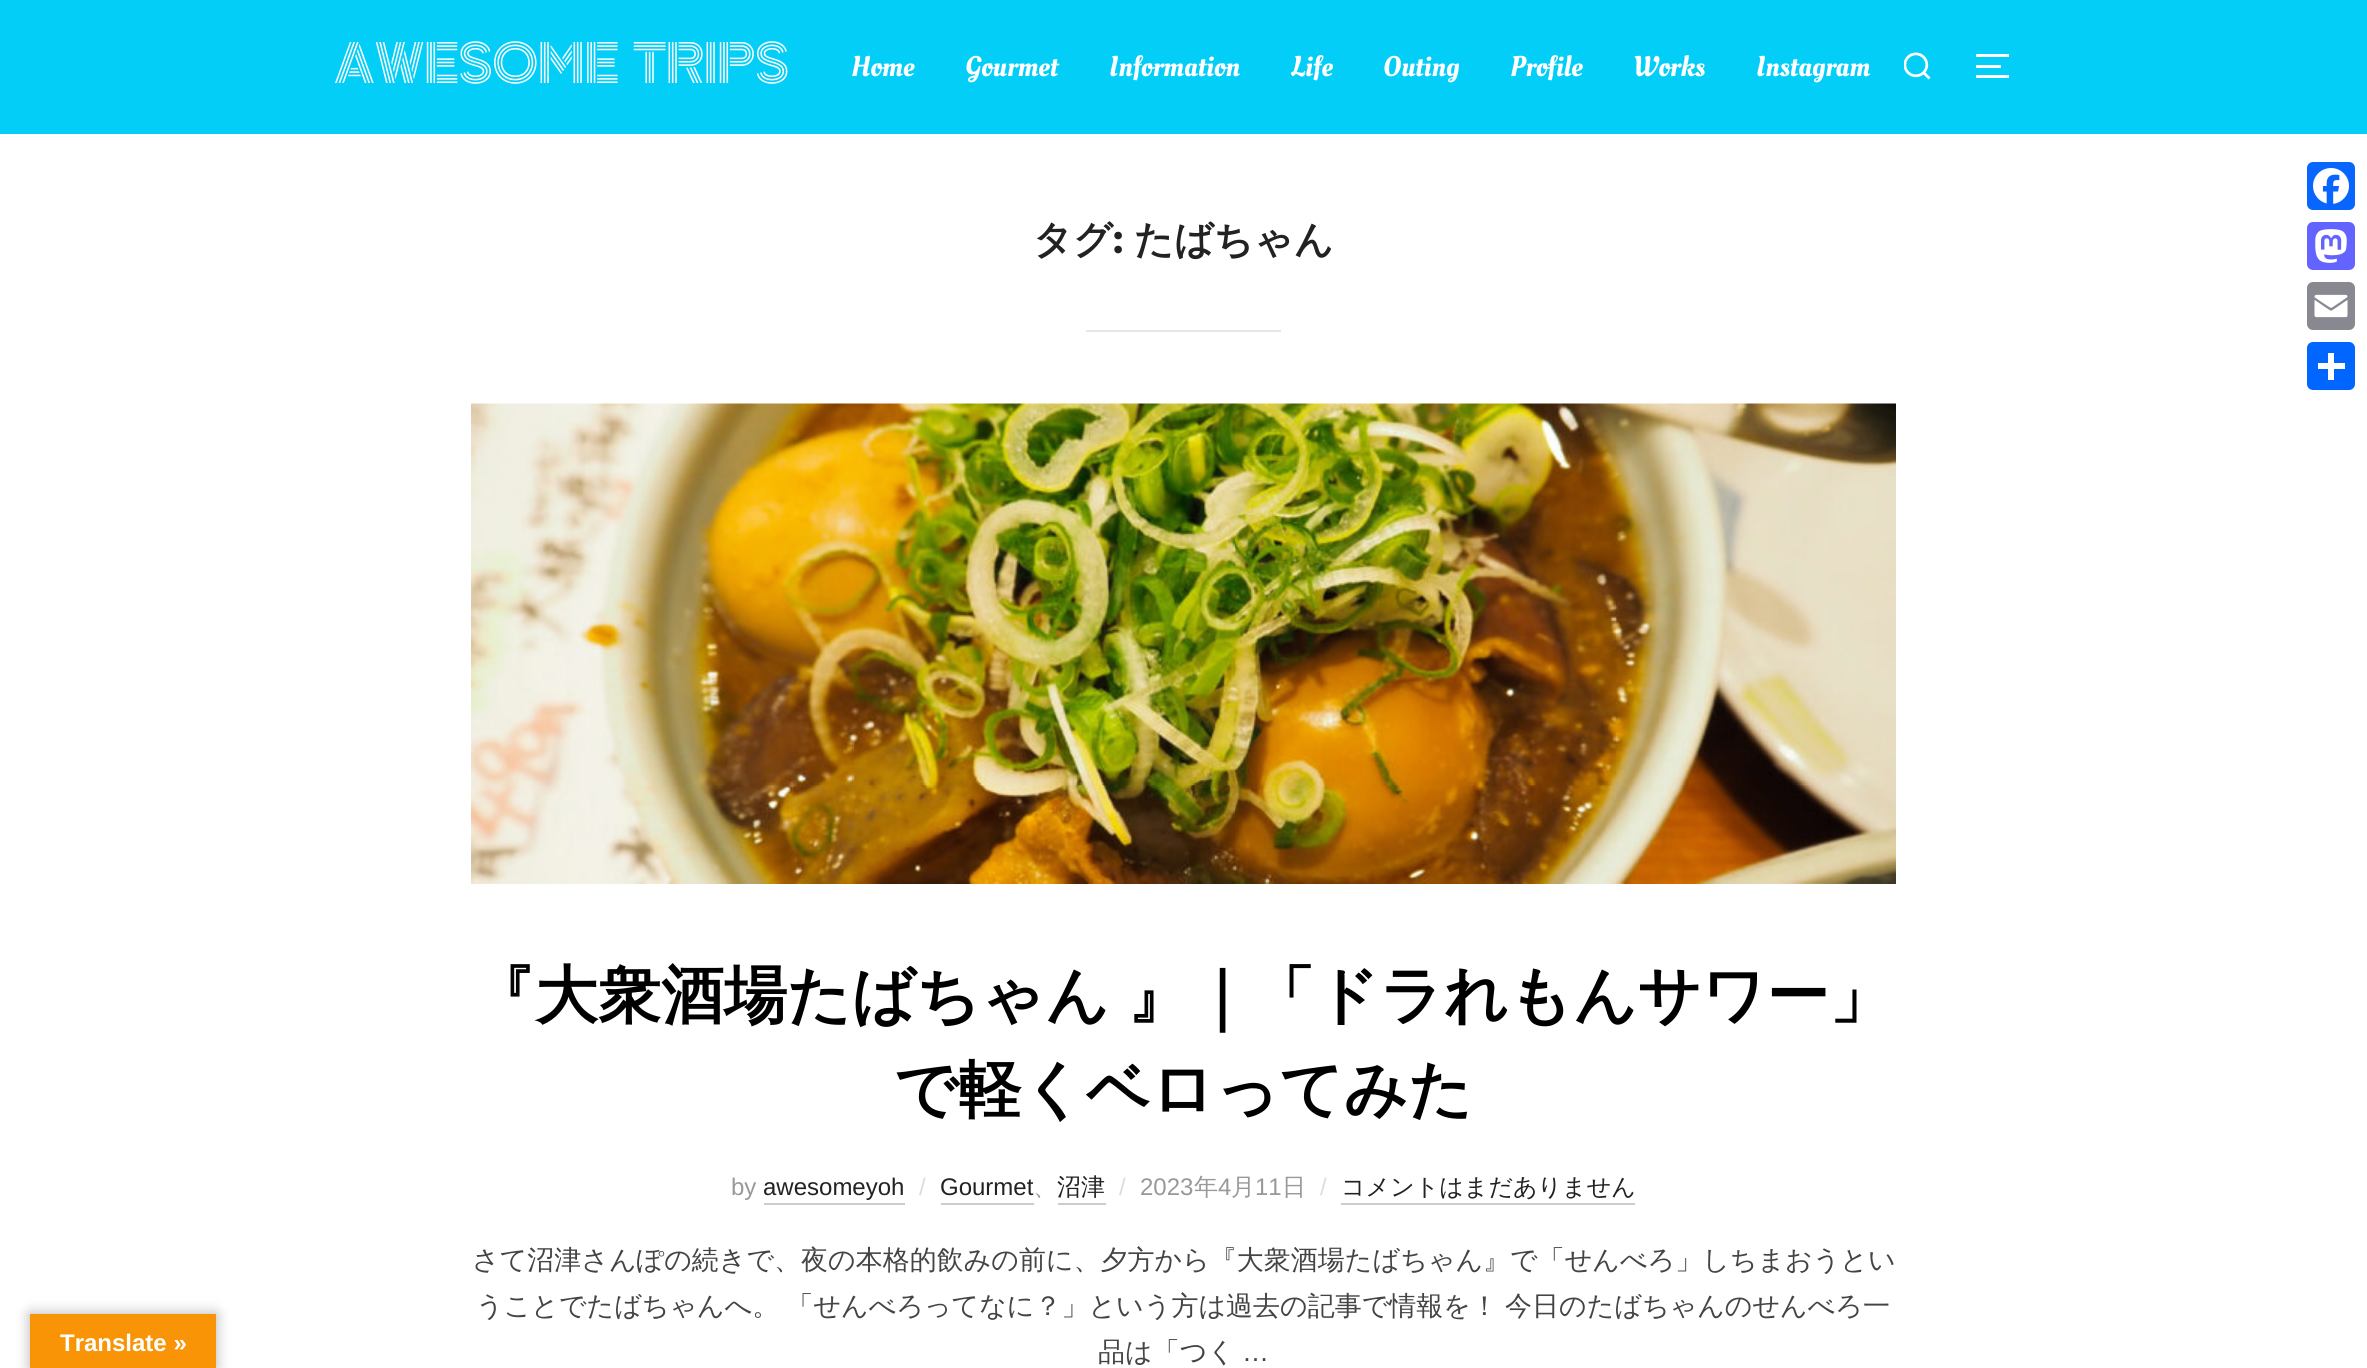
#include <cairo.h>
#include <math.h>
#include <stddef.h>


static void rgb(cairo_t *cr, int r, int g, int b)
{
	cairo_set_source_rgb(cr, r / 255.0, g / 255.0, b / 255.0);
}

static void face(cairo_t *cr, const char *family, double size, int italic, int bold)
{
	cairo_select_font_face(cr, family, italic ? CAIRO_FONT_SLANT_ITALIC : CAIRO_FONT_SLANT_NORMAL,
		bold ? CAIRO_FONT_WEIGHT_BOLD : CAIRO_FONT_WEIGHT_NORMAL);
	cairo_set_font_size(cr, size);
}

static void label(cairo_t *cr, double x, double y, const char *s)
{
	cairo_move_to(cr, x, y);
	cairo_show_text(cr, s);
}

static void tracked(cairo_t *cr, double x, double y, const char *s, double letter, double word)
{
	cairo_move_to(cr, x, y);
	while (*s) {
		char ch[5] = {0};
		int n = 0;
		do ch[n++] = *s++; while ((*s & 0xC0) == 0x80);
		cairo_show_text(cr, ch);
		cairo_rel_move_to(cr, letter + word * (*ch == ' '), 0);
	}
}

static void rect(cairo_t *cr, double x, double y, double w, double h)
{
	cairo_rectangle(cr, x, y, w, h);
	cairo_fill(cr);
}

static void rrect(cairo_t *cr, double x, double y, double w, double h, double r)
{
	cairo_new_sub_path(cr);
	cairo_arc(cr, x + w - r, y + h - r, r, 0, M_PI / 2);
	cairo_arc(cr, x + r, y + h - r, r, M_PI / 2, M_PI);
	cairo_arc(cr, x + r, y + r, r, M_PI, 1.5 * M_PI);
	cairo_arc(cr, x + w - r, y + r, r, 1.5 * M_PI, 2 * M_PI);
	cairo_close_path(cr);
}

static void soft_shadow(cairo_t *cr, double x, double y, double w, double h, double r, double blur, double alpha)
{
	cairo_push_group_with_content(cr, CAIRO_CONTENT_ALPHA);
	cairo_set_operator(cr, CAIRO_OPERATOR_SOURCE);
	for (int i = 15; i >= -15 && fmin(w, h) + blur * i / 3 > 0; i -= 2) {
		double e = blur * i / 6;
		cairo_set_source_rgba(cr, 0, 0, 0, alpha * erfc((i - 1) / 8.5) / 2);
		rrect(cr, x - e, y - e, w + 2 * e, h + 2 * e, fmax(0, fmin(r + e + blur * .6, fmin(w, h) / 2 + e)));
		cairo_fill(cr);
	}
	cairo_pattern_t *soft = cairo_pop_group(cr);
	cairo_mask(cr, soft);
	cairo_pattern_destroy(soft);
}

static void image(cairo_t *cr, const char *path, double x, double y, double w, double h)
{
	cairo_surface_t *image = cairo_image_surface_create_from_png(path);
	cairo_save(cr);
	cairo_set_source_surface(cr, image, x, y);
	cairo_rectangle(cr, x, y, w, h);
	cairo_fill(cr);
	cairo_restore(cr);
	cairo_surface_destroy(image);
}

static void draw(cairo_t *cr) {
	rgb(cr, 255, 255, 255);
	cairo_paint(cr);
	rgb(cr, 2, 206, 247);
	rect(cr, 0, 0, 2367, 134);
	face(cr, "Zen Tokyo Zoo", 51, 0, 0);
	rgb(cr, 255, 255, 255);
	label(cr, 334, 83, "AWESOME TRIPS");
	face(cr, "Oleo Script", 28.5, 0, 0);
	label(cr, 851, 76, "Home");
	label(cr, 965, 76, "Gourmet");
	label(cr, 1109, 76, "Information");
	label(cr, 1291, 76, "Life");
	label(cr, 1383, 76, "Outing");
	label(cr, 1510, 76, "Profile");
	label(cr, 1633, 76, "Works");
	label(cr, 1756, 76, "Instagram");
	image(cr, "image0.png", 1904, 52, 27, 28);
	rect(cr, 1976, 54, 33, 3);
	rect(cr, 1976, 65, 25, 3);
	rect(cr, 1976, 75, 33, 3);
	face(cr, "WenQuanYi Zen Hei", 39, 0, 1);
	rgb(cr, 34, 34, 34);
	label(cr, 1033, 253, "タグ");
	face(cr, "Montserrat", 39, 0, 1);
	label(cr, 1113, 253, ":");
	face(cr, "WenQuanYi Zen Hei", 39, 0, 1);
	label(cr, 1134, 253, "たばちゃん");
	rgb(cr, 230, 230, 230);
	rect(cr, 1086, 330, 195, 2);
	image(cr, "image1.png", 471, 403, 1425, 481);
	face(cr, "WenQuanYi Zen Hei", 63, 0, 1);
	rgb(cr, 0, 0, 0);
	tracked(cr, 472, 1017, "『大衆酒場たばちゃん 』｜「ドラれもんサワー」", 0, -1);
	label(cr, 894, 1111, "で軽くベロってみた");
	face(cr, "Liberation Sans", 24, 0, 0);
	rgb(cr, 153, 153, 153);
	label(cr, 731, 1195, "by");
	rgb(cr, 34, 34, 34);
	label(cr, 763, 1195, "awesomeyoh");
	rgb(cr, 204, 204, 204);
	rect(cr, 764, 1203, 141, 2);
	rgb(cr, 219, 221, 221);
	label(cr, 919, 1195, "/");
	rgb(cr, 34, 34, 34);
	label(cr, 940, 1195, "Gourmet");
	face(cr, "WenQuanYi Zen Hei Medium", 24, 0, 0);
	label(cr, 1057, 1195, "沼津");
	face(cr, "Liberation Sans", 24, 0, 0);
	rgb(cr, 219, 221, 221);
	label(cr, 1119, 1195, "/");
	rgb(cr, 153, 153, 153);
	label(cr, 1140, 1195, "2023");
	face(cr, "WenQuanYi Zen Hei Medium", 24, 0, 0);
	label(cr, 1194, 1195, "年");
	face(cr, "Liberation Sans", 24, 0, 0);
	label(cr, 1218, 1195, "4");
	face(cr, "WenQuanYi Zen Hei Medium", 24, 0, 0);
	label(cr, 1231, 1195, "月");
	face(cr, "Liberation Sans", 24, 0, 0);
	label(cr, 1255, 1195, "11");
	face(cr, "WenQuanYi Zen Hei Medium", 24, 0, 0);
	label(cr, 1282, 1195, "日");
	face(cr, "Liberation Sans", 24, 0, 0);
	rgb(cr, 219, 221, 221);
	label(cr, 1320, 1195, "/");
	face(cr, "WenQuanYi Zen Hei Medium", 24, 0, 0);
	rgb(cr, 34, 34, 34);
	label(cr, 1341, 1195, "コメントはまだありません");
	rgb(cr, 204, 204, 204);
	rect(cr, 1341, 1203, 294, 2);
	rgb(cr, 153, 153, 153);
	label(cr, 1033, 1195, "、");
	rgb(cr, 204, 204, 204);
	rect(cr, 941, 1203, 93, 2);
	rect(cr, 1058, 1203, 48, 2);
	face(cr, "WenQuanYi Zen Hei Medium", 27, 0, 0);
	rgb(cr, 68, 68, 68);
	label(cr, 472, 1269, "さて沼津さんぽの続きで、夜の本格的飲みの前に、夕方から『大衆酒場たばちゃん』で「せんべろ」しちまおうとい");
	tracked(cr, 476, 1315, "うことでたばちゃんへ。 「せんべろってなに？」という方は過去の記事で情報を！ 今日のたばちゃんのせんべろ一", 0, -1);
	label(cr, 1098, 1361, "品は「つく");
	face(cr, "Liberation Sans", 27, 0, 0);
	label(cr, 1242, 1361, "…");
	rgb(cr, 8, 102, 255);
	rrect(cr, 2307, 162, 48, 48, 6);
	cairo_fill(cr);
	image(cr, "image2.png", 2313, 168, 36, 36);
	rgb(cr, 99, 100, 255);
	rrect(cr, 2307, 222, 48, 48, 6);
	cairo_fill(cr);
	image(cr, "image3.png", 2315, 229, 32, 34);
	rgb(cr, 136, 137, 144);
	rrect(cr, 2307, 282, 48, 48, 6);
	cairo_fill(cr);
	image(cr, "image4.png", 2314, 294, 34, 24);
	rgb(cr, 1, 102, 255);
	rrect(cr, 2307, 342, 48, 48, 6);
	cairo_fill(cr);
	rgb(cr, 255, 255, 255);
	rect(cr, 2328, 353, 6, 27);
	rect(cr, 2318, 363, 27, 6);
	rgb(cr, 0, 0, 0);
	soft_shadow(cr, 30, 1314, 186, 54, 0, 7, 0.3);
	rgb(cr, 248, 148, 6);
	rect(cr, 30, 1314, 186, 54);
	face(cr, "Liberation Sans", 24, 0, 1);
	rgb(cr, 255, 255, 255);
	label(cr, 60, 1351, "Translate »");
}

int main(void) {
	cairo_surface_t *surface = cairo_image_surface_create(CAIRO_FORMAT_RGB24, 2367, 1368);
	cairo_t *cr = cairo_create(surface);
	cairo_font_options_t *options = cairo_font_options_create();
	cairo_font_options_set_hint_metrics(options, CAIRO_HINT_METRICS_OFF);
	cairo_font_options_set_hint_style(options, CAIRO_HINT_STYLE_NONE);
	cairo_set_font_options(cr, options);
	cairo_set_miter_limit(cr, 4);
	draw(cr);
	cairo_surface_write_to_png(surface, "render.png");
	cairo_font_options_destroy(options);
	cairo_destroy(cr);
	cairo_surface_destroy(surface);
	return 0;
}
